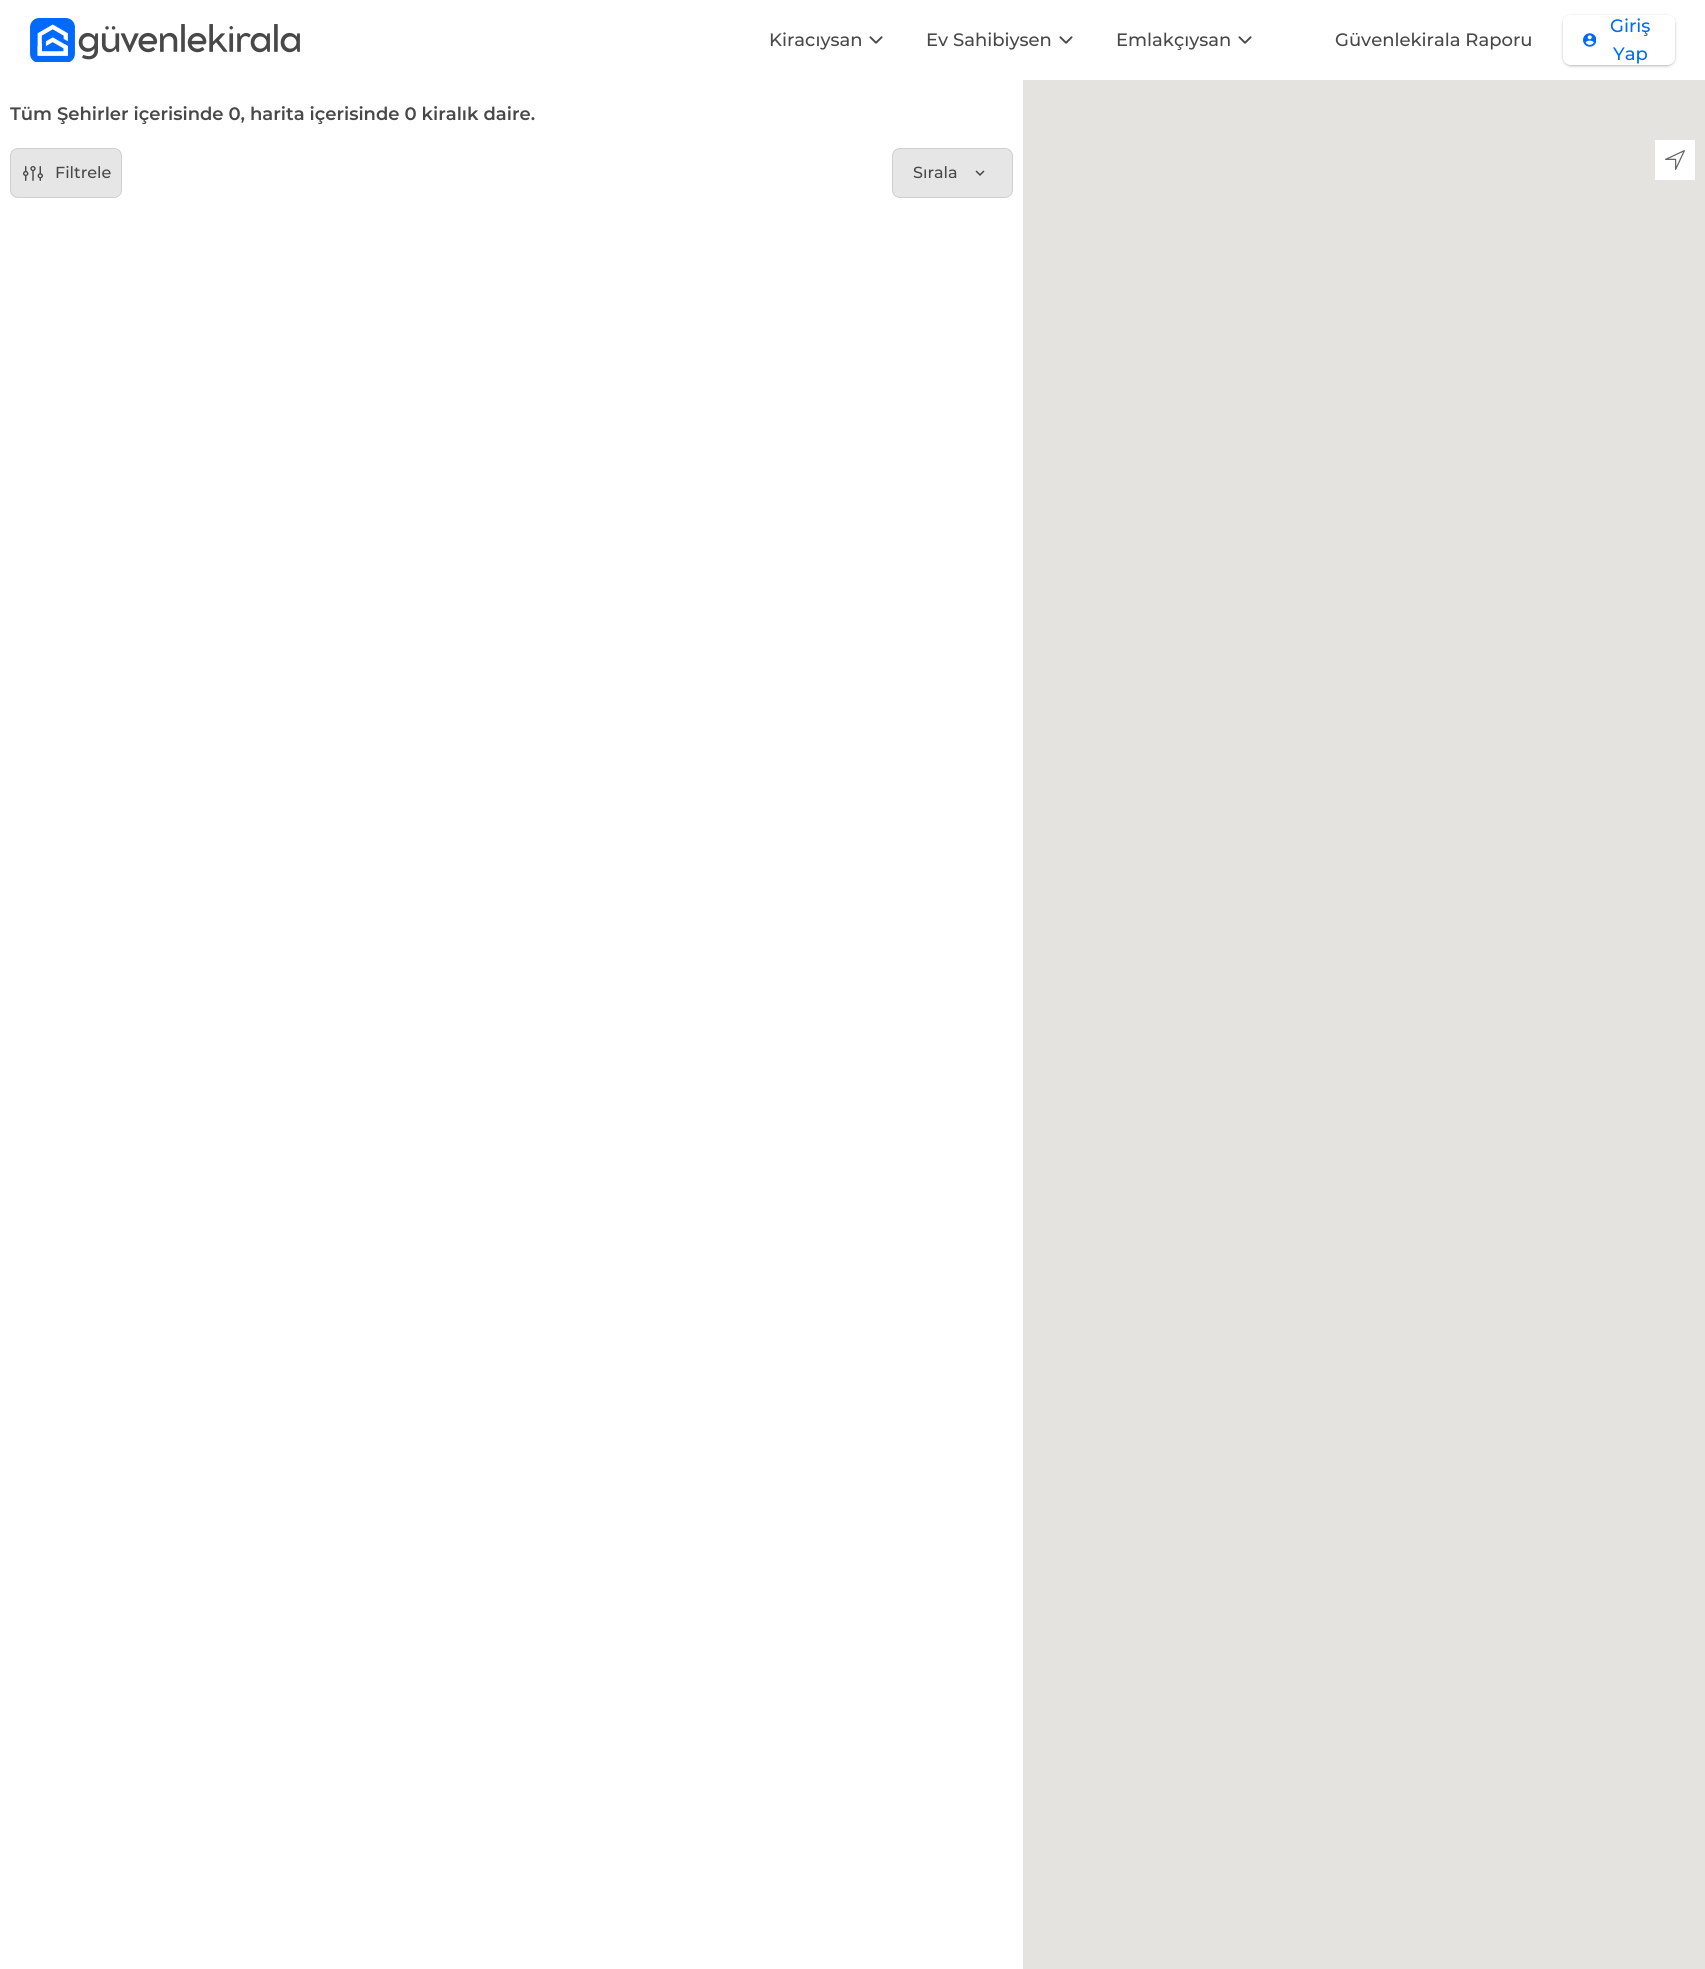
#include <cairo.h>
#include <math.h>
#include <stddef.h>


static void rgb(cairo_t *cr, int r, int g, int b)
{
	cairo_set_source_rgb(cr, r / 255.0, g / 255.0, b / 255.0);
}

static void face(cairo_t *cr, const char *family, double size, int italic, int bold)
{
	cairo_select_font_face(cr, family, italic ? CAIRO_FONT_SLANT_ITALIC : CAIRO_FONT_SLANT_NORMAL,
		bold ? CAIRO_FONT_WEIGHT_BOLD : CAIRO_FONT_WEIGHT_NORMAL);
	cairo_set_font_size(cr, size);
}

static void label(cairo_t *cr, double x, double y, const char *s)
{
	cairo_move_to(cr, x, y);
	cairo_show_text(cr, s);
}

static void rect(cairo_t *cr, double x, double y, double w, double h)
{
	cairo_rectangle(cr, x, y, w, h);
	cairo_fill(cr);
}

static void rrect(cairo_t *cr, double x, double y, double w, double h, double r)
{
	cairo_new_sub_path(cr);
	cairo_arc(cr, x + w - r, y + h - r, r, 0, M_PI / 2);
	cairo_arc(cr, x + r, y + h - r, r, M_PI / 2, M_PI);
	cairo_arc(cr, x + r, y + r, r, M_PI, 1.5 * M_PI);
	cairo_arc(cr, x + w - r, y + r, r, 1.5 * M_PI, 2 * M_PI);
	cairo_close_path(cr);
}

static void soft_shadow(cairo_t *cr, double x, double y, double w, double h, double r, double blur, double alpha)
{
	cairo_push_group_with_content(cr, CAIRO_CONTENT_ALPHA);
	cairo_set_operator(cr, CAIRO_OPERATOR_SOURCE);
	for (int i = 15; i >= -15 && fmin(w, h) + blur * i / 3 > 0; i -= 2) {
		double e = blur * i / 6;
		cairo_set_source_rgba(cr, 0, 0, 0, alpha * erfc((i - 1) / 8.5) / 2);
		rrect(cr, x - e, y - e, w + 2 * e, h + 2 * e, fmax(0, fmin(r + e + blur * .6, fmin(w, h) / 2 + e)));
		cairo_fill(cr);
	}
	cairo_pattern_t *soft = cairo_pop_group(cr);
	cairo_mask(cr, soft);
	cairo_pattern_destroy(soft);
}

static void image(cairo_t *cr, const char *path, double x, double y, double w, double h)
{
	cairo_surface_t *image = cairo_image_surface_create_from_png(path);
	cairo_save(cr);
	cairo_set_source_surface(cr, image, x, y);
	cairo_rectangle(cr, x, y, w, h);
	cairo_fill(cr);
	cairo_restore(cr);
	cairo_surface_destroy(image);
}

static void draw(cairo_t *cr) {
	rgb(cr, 255, 255, 255);
	cairo_paint(cr);
	image(cr, "image0.png", 30, 18, 270, 44);
	face(cr, "Montserrat Medium", 18, 0, 0);
	rgb(cr, 72, 72, 72);
	label(cr, 769, 46, "Kiracıysan");
	image(cr, "image1.png", 869, 36, 14, 8);
	label(cr, 926, 46, "Ev Sahibiysen");
	image(cr, "image1.png", 1059, 36, 14, 8);
	label(cr, 1116, 46, "Emlakçıysan");
	image(cr, "image1.png", 1238, 36, 14, 8);
	label(cr, 1335, 46, "Güvenlekirala Raporu");
	cairo_save(cr);
	cairo_set_fill_rule(cr, CAIRO_FILL_RULE_EVEN_ODD);
	cairo_new_path(cr);
	cairo_move_to(cr, 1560, 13);
	cairo_line_to(cr, 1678, 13);
	cairo_line_to(cr, 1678, 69);
	cairo_line_to(cr, 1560, 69);
	cairo_close_path(cr);
	cairo_move_to(cr, 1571, 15);
	cairo_line_to(cr, 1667, 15);
	cairo_curve_to(cr, 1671.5, 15, 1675, 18.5, 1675, 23);
	cairo_line_to(cr, 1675, 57);
	cairo_curve_to(cr, 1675, 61.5, 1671.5, 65, 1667, 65);
	cairo_line_to(cr, 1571, 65);
	cairo_curve_to(cr, 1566.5, 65, 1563, 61.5, 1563, 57);
	cairo_line_to(cr, 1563, 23);
	cairo_curve_to(cr, 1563, 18.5, 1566.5, 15, 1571, 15);
	cairo_close_path(cr);
	cairo_clip(cr);
	rgb(cr, 144, 142, 142);
	soft_shadow(cr, 1564, 17, 110, 48, 7, 1, 0.5);
	cairo_restore(cr);
	cairo_save(cr);
	cairo_set_fill_rule(cr, CAIRO_FILL_RULE_EVEN_ODD);
	cairo_new_path(cr);
	cairo_move_to(cr, 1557, 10);
	cairo_line_to(cr, 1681, 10);
	cairo_line_to(cr, 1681, 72);
	cairo_line_to(cr, 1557, 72);
	cairo_close_path(cr);
	cairo_move_to(cr, 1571, 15);
	cairo_line_to(cr, 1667, 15);
	cairo_curve_to(cr, 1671.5, 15, 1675, 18.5, 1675, 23);
	cairo_line_to(cr, 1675, 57);
	cairo_curve_to(cr, 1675, 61.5, 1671.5, 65, 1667, 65);
	cairo_line_to(cr, 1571, 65);
	cairo_curve_to(cr, 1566.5, 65, 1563, 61.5, 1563, 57);
	cairo_line_to(cr, 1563, 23);
	cairo_curve_to(cr, 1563, 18.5, 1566.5, 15, 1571, 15);
	cairo_close_path(cr);
	cairo_clip(cr);
	rgb(cr, 144, 142, 142);
	soft_shadow(cr, 1563, 16, 112, 50, 8, 1.5, 0.5);
	cairo_restore(cr);
	image(cr, "image2.png", 1583, 33, 13, 14);
	rgb(cr, 0, 106, 255);
	label(cr, 1610, 32, "Giriş");
	label(cr, 1613, 60, "Yap");
	face(cr, "Montserrat SemiBold", 18, 0, 0);
	rgb(cr, 72, 72, 72);
	label(cr, 10, 120, "Tüm Şehirler içerisinde 0, harita içerisinde 0 kiralık daire.");
	rgb(cr, 230, 230, 230);
	rrect(cr, 10, 148, 112, 50, 8);
	cairo_fill(cr);
	rrect(cr, 10.5, 148.5, 111, 49, 7.5);
	cairo_set_source_rgba(cr, 0, 0, 0, 0.1);
	cairo_set_line_width(cr, 1);
	cairo_stroke(cr);
	image(cr, "image3.png", 23, 166, 20, 15);
	face(cr, "Montserrat Medium", 16, 0, 0);
	rgb(cr, 72, 72, 72);
	label(cr, 55, 178, "Filtrele");
	rgb(cr, 230, 230, 230);
	rrect(cr, 892, 148, 121, 50, 8);
	cairo_fill(cr);
	rrect(cr, 892.5, 148.5, 120, 49, 7.5);
	cairo_set_source_rgba(cr, 0, 0, 0, 0.1);
	cairo_stroke(cr);
	rgb(cr, 72, 72, 72);
	label(cr, 913, 178, "Sırala");
	image(cr, "image4.png", 975, 170, 10, 6);
	rgb(cr, 229, 227, 223);
	rect(cr, 1023, 80, 682, 1889);
	rgb(cr, 255, 255, 255);
	rect(cr, 1655, 140, 40, 40);
	image(cr, "image5.png", 1665, 150, 20, 20);
}

int main(void) {
	cairo_surface_t *surface = cairo_image_surface_create(CAIRO_FORMAT_RGB24, 1705, 1969);
	cairo_t *cr = cairo_create(surface);
	cairo_font_options_t *options = cairo_font_options_create();
	cairo_font_options_set_hint_metrics(options, CAIRO_HINT_METRICS_OFF);
	cairo_font_options_set_hint_style(options, CAIRO_HINT_STYLE_NONE);
	cairo_set_font_options(cr, options);
	cairo_set_miter_limit(cr, 4);
	draw(cr);
	cairo_surface_write_to_png(surface, "render.png");
	cairo_font_options_destroy(options);
	cairo_destroy(cr);
	cairo_surface_destroy(surface);
	return 0;
}
